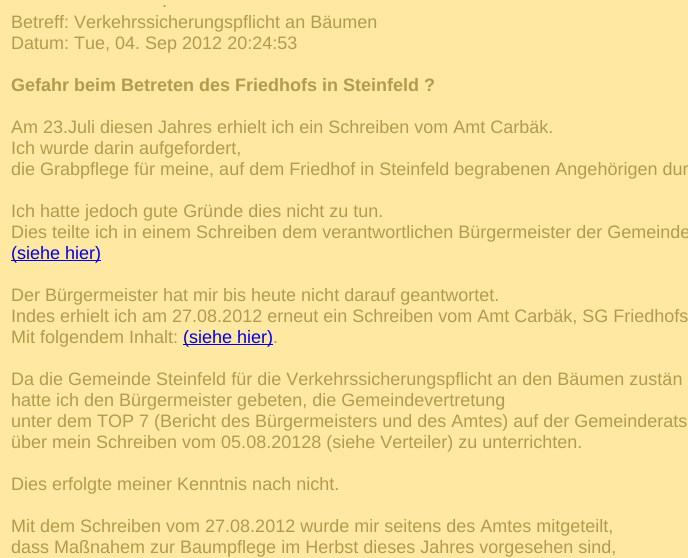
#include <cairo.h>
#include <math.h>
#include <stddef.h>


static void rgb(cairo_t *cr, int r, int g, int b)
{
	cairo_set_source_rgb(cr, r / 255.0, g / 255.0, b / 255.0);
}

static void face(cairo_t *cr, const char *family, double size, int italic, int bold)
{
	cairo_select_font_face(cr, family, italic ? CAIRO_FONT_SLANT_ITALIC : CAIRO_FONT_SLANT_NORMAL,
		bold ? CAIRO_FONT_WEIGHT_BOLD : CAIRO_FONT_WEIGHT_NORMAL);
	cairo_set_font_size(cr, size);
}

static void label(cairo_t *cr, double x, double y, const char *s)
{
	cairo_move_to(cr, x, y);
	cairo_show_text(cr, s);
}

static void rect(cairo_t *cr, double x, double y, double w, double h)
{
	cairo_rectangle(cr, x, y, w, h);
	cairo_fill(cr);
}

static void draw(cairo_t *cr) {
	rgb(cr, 255, 232, 162);
	cairo_paint(cr);
	face(cr, "Liberation Sans", 18, 0, 0);
	rgb(cr, 179, 154, 78);
	label(cr, 162, 7, ".");
	label(cr, 11, 28, "Betreff: Verkehrssicherungspflicht an Bäumen");
	label(cr, 11, 49, "Datum: Tue, 04. Sep 2012 20:24:53");
	face(cr, "Liberation Sans", 18, 0, 1);
	label(cr, 11, 91, "Gefahr beim Betreten des Friedhofs in Steinfeld ?");
	face(cr, "Liberation Sans", 18, 0, 0);
	label(cr, 11, 133, "Am 23.Juli diesen Jahres erhielt ich ein Schreiben vom Amt Carbäk.");
	label(cr, 11, 154, "Ich wurde darin aufgefordert,");
	label(cr, 11, 175, "die Grabpflege für meine, auf dem Friedhof in Steinfeld begrabenen Angehörigen dur");
	label(cr, 11, 217, "Ich hatte jedoch gute Gründe dies nicht zu tun.");
	label(cr, 11, 238, "Dies teilte ich in einem Schreiben dem verantwortlichen Bürgermeister der Gemeinde");
	rgb(cr, 0, 0, 238);
	rect(cr, 11, 260, 90, 1);
	label(cr, 11, 259, "(siehe hier)");
	rgb(cr, 179, 154, 78);
	label(cr, 11, 301, "Der Bürgermeister hat mir bis heute nicht darauf geantwortet.");
	label(cr, 11, 322, "Indes erhielt ich am 27.08.2012 erneut ein Schreiben vom Amt Carbäk, SG Friedhofs");
	label(cr, 11, 343, "Mit folgendem Inhalt:");
	rgb(cr, 0, 0, 238);
	rect(cr, 183, 344, 90, 1);
	label(cr, 183, 343, "(siehe hier)");
	rgb(cr, 179, 154, 78);
	label(cr, 273, 343, ".");
	label(cr, 11, 385, "Da die Gemeinde Steinfeld für die Verkehrssicherungspflicht an den Bäumen zustän");
	label(cr, 11, 406, "hatte ich den Bürgermeister gebeten, die Gemeindevertretung");
	label(cr, 11, 427, "unter dem TOP 7 (Bericht des Bürgermeisters und des Amtes) auf der Gemeinderats");
	label(cr, 11, 448, "über mein Schreiben vom 05.08.20128 (siehe Verteiler) zu unterrichten.");
	label(cr, 11, 490, "Dies erfolgte meiner Kenntnis nach nicht.");
	label(cr, 11, 532, "Mit dem Schreiben vom 27.08.2012 wurde mir seitens des Amtes mitgeteilt,");
	label(cr, 11, 553, "dass Maßnahem zur Baumpflege im Herbst dieses Jahres vorgesehen sind,");
}

int main(void) {
	cairo_surface_t *surface = cairo_image_surface_create(CAIRO_FORMAT_RGB24, 688, 558);
	cairo_t *cr = cairo_create(surface);
	cairo_font_options_t *options = cairo_font_options_create();
	cairo_font_options_set_hint_metrics(options, CAIRO_HINT_METRICS_OFF);
	cairo_font_options_set_hint_style(options, CAIRO_HINT_STYLE_NONE);
	cairo_set_font_options(cr, options);
	cairo_set_miter_limit(cr, 4);
	draw(cr);
	cairo_surface_write_to_png(surface, "render.png");
	cairo_font_options_destroy(options);
	cairo_destroy(cr);
	cairo_surface_destroy(surface);
	return 0;
}
